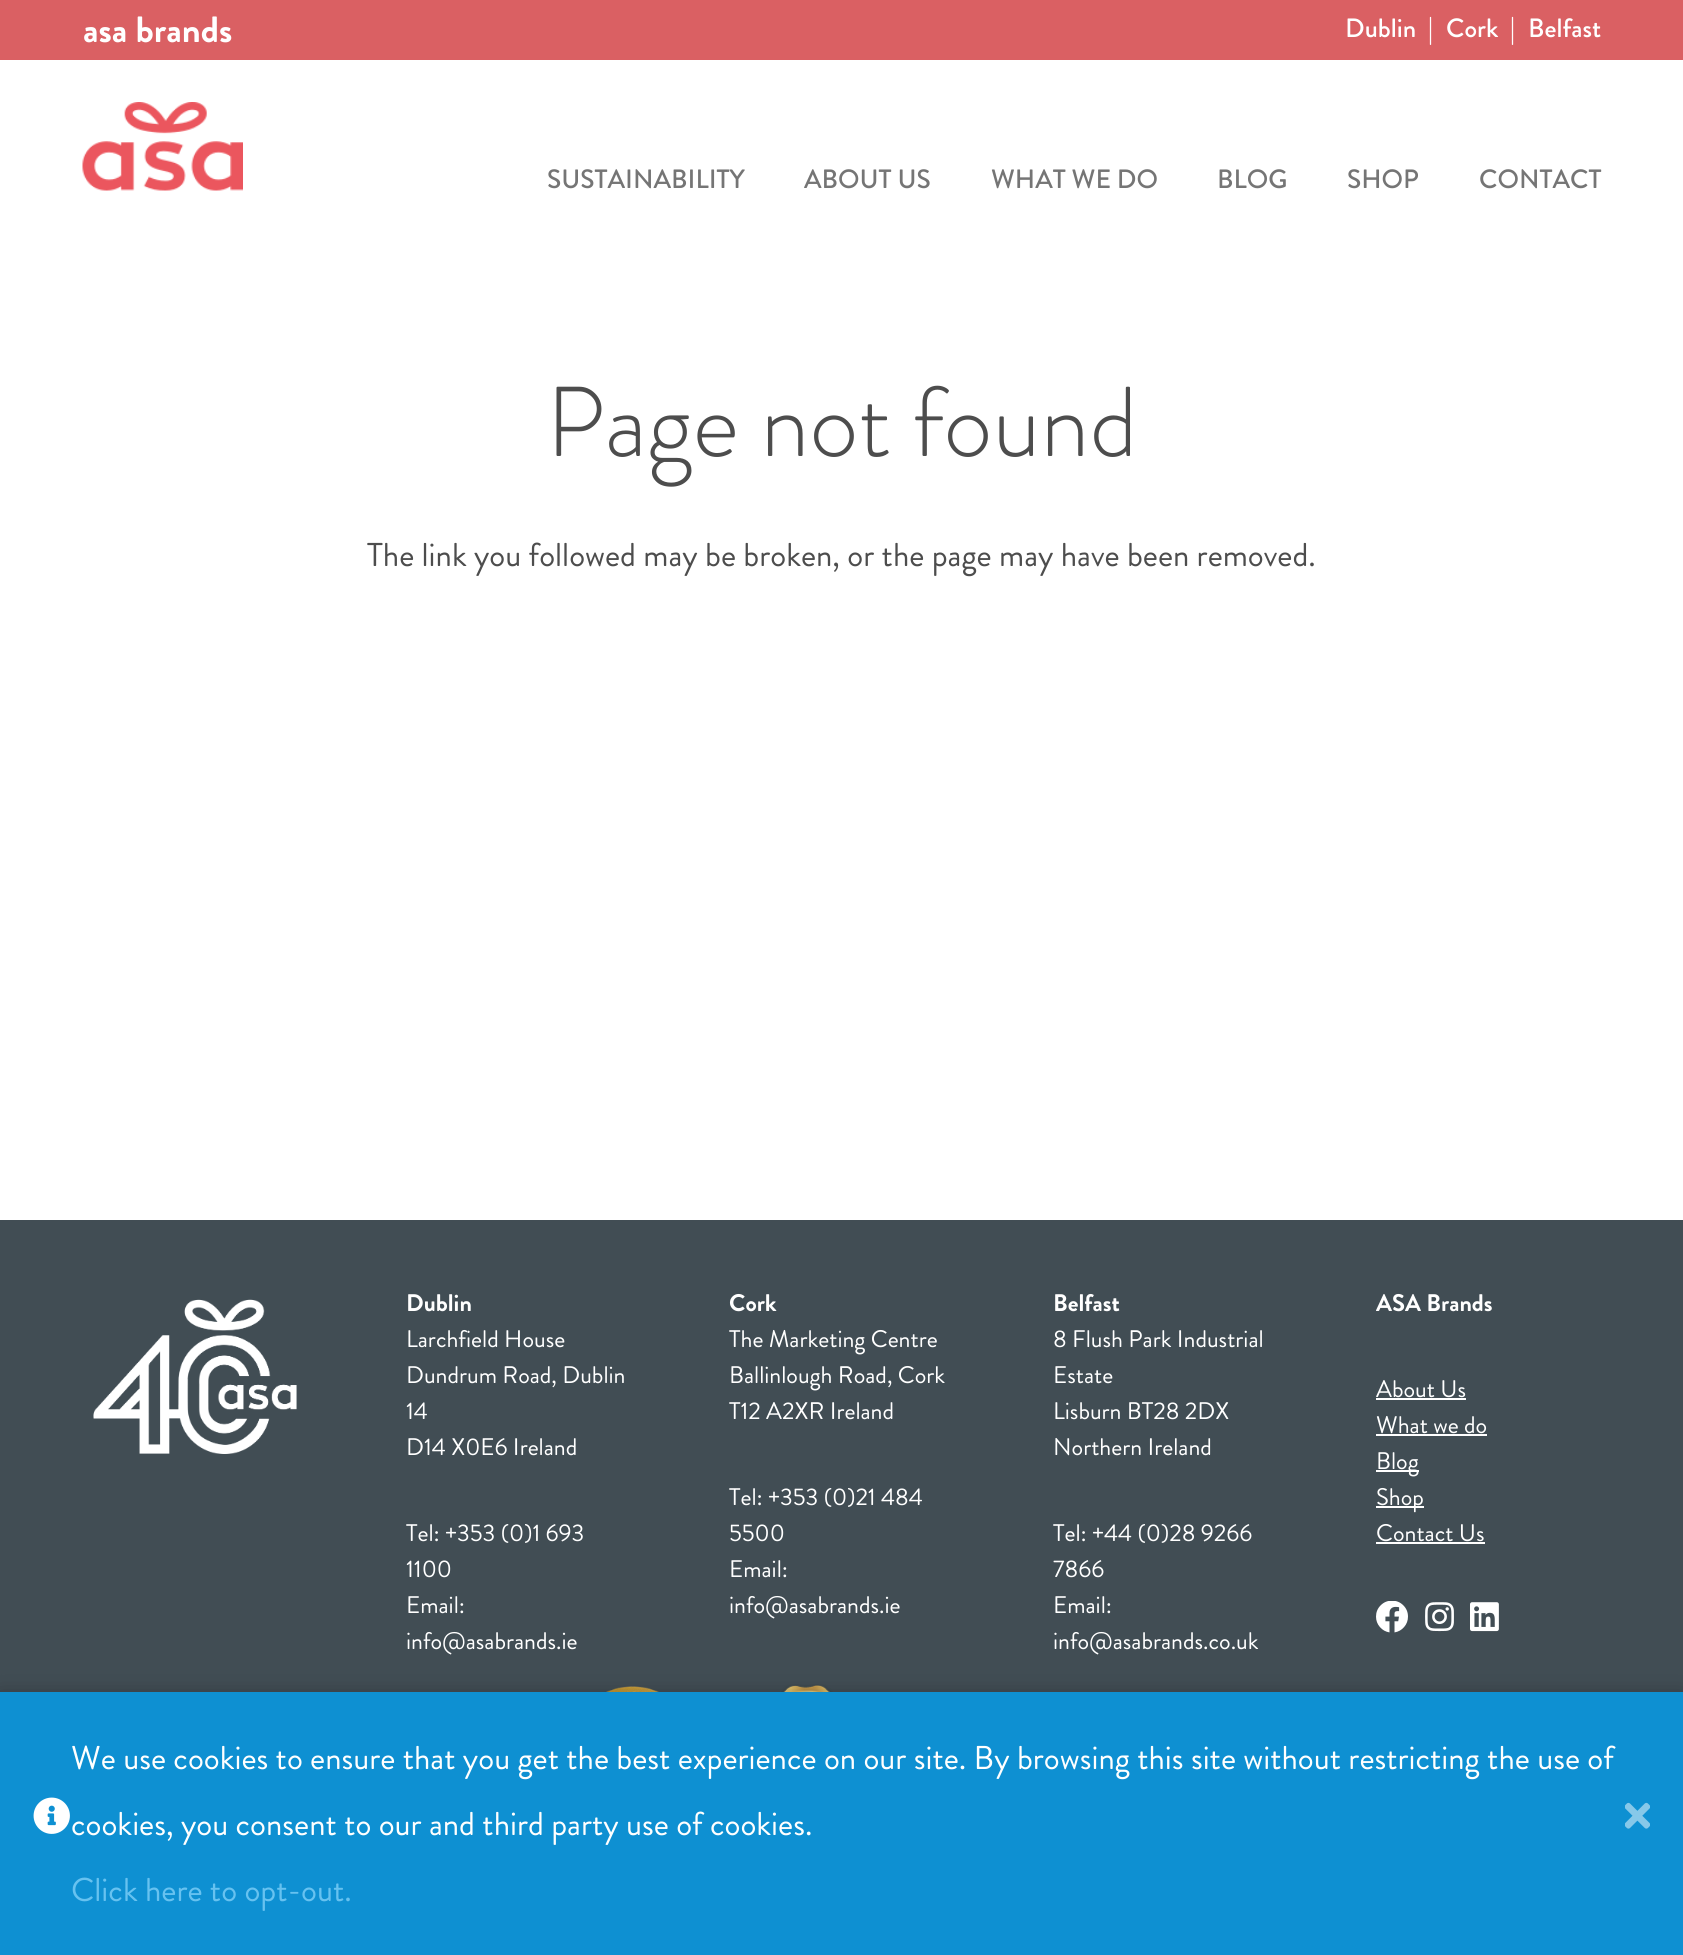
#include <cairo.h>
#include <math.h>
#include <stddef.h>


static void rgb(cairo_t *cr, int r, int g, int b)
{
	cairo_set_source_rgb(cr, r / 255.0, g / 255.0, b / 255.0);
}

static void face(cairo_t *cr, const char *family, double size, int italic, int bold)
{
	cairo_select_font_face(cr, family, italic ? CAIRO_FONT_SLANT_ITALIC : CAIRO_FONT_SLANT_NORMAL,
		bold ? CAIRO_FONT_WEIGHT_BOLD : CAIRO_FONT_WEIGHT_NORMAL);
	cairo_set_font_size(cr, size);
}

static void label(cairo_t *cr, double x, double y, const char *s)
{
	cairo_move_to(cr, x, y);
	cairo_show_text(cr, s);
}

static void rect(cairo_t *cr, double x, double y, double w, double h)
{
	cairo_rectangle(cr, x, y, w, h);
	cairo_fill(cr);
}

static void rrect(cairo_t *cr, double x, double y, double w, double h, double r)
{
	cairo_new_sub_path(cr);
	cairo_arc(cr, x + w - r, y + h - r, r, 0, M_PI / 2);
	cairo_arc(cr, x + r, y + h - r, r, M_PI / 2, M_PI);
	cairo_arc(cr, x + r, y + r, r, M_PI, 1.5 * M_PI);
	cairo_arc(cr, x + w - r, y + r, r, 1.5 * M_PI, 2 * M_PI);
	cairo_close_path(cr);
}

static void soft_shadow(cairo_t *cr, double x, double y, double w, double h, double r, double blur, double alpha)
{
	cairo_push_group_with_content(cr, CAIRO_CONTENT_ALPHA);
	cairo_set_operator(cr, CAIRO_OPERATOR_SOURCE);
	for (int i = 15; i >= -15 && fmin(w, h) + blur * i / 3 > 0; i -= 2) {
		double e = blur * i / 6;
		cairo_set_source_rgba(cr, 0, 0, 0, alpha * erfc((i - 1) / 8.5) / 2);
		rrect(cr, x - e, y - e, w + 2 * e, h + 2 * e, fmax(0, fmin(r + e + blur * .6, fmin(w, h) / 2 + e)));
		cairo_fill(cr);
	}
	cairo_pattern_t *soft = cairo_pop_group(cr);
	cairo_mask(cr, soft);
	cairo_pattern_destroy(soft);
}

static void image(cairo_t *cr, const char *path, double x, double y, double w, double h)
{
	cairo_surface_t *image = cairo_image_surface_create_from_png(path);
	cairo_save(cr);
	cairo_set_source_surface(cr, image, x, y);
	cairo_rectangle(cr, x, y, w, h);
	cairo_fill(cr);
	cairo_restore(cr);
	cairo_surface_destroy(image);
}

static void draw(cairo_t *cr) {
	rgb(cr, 255, 255, 255);
	cairo_paint(cr);
	rgb(cr, 218, 96, 99);
	rect(cr, 0, 0, 1683, 60);
	face(cr, "Brandon Grotesque", 36.5, 0, 1);
	rgb(cr, 255, 255, 255);
	label(cr, 83, 42, "asa brands");
	face(cr, "Brandon Grotesque Medium", 26.5, 0, 0);
	label(cr, 1345, 37, "Dublin");
	label(cr, 1428, 37, "|");
	label(cr, 1446, 37, "Cork");
	label(cr, 1510, 37, "|");
	label(cr, 1528, 37, "Belfast");
	image(cr, "image0.png", 82, 102, 161, 89);
	rgb(cr, 117, 117, 117);
	label(cr, 547, 188, "SUSTAINABILITY");
	label(cr, 804, 188, "ABOUT US");
	label(cr, 991, 188, "WHAT WE DO");
	label(cr, 1217, 188, "BLOG");
	label(cr, 1347, 188, "SHOP");
	label(cr, 1479, 188, "CONTACT");
	face(cr, "Brandon Grotesque Light", 99, 0, 0);
	rgb(cr, 77, 77, 77);
	label(cr, 546, 456, "Page not found");
	face(cr, "Brandon Grotesque", 33, 0, 0);
	label(cr, 367, 566, "The link you followed may be broken, or the page may have been removed.");
	rgb(cr, 65, 77, 84);
	rect(cr, 0, 1220, 1683, 472);
	image(cr, "image1.png", 93, 1299, 204, 155);
	face(cr, "Brandon Grotesque", 24, 0, 1);
	rgb(cr, 255, 255, 255);
	label(cr, 406, 1311, "Dublin");
	face(cr, "Brandon Grotesque", 24, 0, 0);
	label(cr, 406, 1347, "Larchfield House");
	label(cr, 406, 1383, "Dundrum Road, Dublin");
	label(cr, 406, 1419, "14");
	label(cr, 406, 1455, "D14 X0E6 Ireland");
	label(cr, 406, 1541, "Tel: +353 (0)1 693");
	label(cr, 406, 1577, "1100");
	label(cr, 406, 1613, "Email:");
	label(cr, 406, 1649, "info@asabrands.ie");
	face(cr, "Brandon Grotesque", 24, 0, 1);
	label(cr, 729, 1311, "Cork");
	face(cr, "Brandon Grotesque", 24, 0, 0);
	label(cr, 729, 1347, "The Marketing Centre");
	label(cr, 729, 1383, "Ballinlough Road, Cork");
	label(cr, 729, 1419, "T12 A2XR Ireland");
	label(cr, 729, 1505, "Tel: +353 (0)21 484");
	label(cr, 729, 1541, "5500");
	label(cr, 729, 1577, "Email:");
	label(cr, 729, 1613, "info@asabrands.ie");
	face(cr, "Brandon Grotesque", 24, 0, 1);
	label(cr, 1053, 1311, "Belfast");
	face(cr, "Brandon Grotesque", 24, 0, 0);
	label(cr, 1053, 1347, "8 Flush Park Industrial");
	label(cr, 1053, 1383, "Estate");
	label(cr, 1053, 1419, "Lisburn BT28 2DX");
	label(cr, 1053, 1455, "Northern Ireland");
	label(cr, 1053, 1541, "Tel: +44 (0)28 9266");
	label(cr, 1053, 1577, "7866");
	label(cr, 1053, 1613, "Email:");
	label(cr, 1053, 1649, "info@asabrands.co.uk");
	face(cr, "Brandon Grotesque", 24, 0, 1);
	label(cr, 1376, 1311, "ASA Brands");
	face(cr, "Brandon Grotesque", 24, 0, 0);
	label(cr, 1376, 1397, "About Us");
	rect(cr, 1376, 1398, 90, 2);
	label(cr, 1376, 1433, "What we do");
	rect(cr, 1376, 1434, 111, 2);
	rect(cr, 1376, 1470, 43, 2);
	label(cr, 1376, 1469, "Blog");
	rect(cr, 1376, 1506, 48, 2);
	label(cr, 1376, 1505, "Shop");
	label(cr, 1376, 1541, "Contact Us");
	rect(cr, 1376, 1542, 109, 2);
	image(cr, "image2.png", 1376, 1601, 32, 32);
	image(cr, "image3.png", 1425, 1602, 29, 30);
	image(cr, "image4.png", 1470, 1602, 29, 30);
	image(cr, "image5.png", 606, 1686, 53, 6);
	image(cr, "image6.png", 781, 1684, 52, 8);
	rgb(cr, 0, 0, 0);
	soft_shadow(cr, 0, 1698, 1683, 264, 0, 11, 0.4);
	rgb(cr, 14, 144, 210);
	rect(cr, 0, 1692, 1683, 263);
	image(cr, "image7.png", 33, 1797, 37, 37);
	face(cr, "Brandon Grotesque", 33, 0, 0);
	rgb(cr, 255, 255, 255);
	label(cr, 71, 1769, "We use cookies to ensure that you get the best experience on our site. By browsing this site without restricting the use of");
	label(cr, 71, 1835, "cookies, you consent to our and third party use of cookies.");
	rgb(cr, 103, 194, 240);
	label(cr, 71, 1901, "Click here to opt-out.");
	image(cr, "image8.png", 1625, 1802, 25, 27);
}

int main(void) {
	cairo_surface_t *surface = cairo_image_surface_create(CAIRO_FORMAT_RGB24, 1683, 1955);
	cairo_t *cr = cairo_create(surface);
	cairo_font_options_t *options = cairo_font_options_create();
	cairo_font_options_set_hint_metrics(options, CAIRO_HINT_METRICS_OFF);
	cairo_font_options_set_hint_style(options, CAIRO_HINT_STYLE_NONE);
	cairo_set_font_options(cr, options);
	cairo_set_miter_limit(cr, 4);
	draw(cr);
	cairo_surface_write_to_png(surface, "render.png");
	cairo_font_options_destroy(options);
	cairo_destroy(cr);
	cairo_surface_destroy(surface);
	return 0;
}
